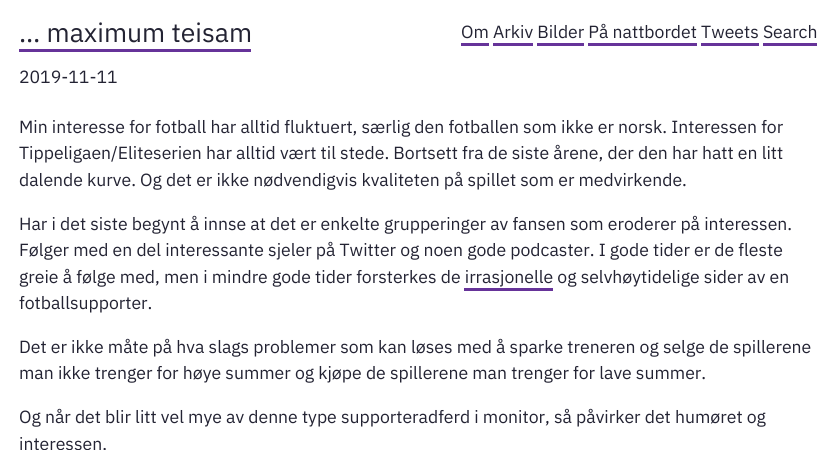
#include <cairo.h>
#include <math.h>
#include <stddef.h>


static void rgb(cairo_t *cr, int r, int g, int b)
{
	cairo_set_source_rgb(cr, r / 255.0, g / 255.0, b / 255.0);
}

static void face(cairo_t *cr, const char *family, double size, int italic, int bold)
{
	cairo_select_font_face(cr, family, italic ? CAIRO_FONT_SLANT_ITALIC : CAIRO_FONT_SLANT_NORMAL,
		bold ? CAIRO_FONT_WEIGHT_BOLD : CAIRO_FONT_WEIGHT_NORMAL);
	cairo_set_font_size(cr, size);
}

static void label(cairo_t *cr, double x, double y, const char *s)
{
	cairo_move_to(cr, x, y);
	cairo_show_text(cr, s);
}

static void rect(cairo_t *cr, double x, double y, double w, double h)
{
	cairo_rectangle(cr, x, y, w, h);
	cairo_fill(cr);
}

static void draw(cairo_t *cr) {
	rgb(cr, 255, 255, 255);
	cairo_paint(cr);
	face(cr, "IBM Plex Sans", 26.5, 0, 0);
	rgb(cr, 35, 35, 51);
	label(cr, 19, 42, "… maximum teisam");
	rgb(cr, 102, 51, 153);
	rect(cr, 19, 49, 232, 3);
	face(cr, "IBM Plex Sans", 17.6, 0, 0);
	rgb(cr, 35, 35, 51);
	label(cr, 461, 38, "Om Arkiv Bilder På nattbordet Tweets Search");
	rgb(cr, 102, 51, 153);
	rect(cr, 461, 43, 28, 3);
	rect(cr, 493, 43, 40, 3);
	rect(cr, 537, 43, 47, 3);
	rect(cr, 588, 43, 109, 3);
	rect(cr, 701, 43, 58, 3);
	rect(cr, 763, 43, 54, 3);
	rgb(cr, 35, 35, 51);
	label(cr, 19, 83, "2019-11-11");
	label(cr, 19, 133, "Min interesse for fotball har alltid fluktuert, særlig den fotballen som ikke er norsk. Interessen for");
	label(cr, 19, 159, "Tippeligaen/Eliteserien har alltid vært til stede. Bortsett fra de siste årene, der den har hatt en litt");
	label(cr, 19, 186, "dalende kurve. Og det er ikke nødvendigvis kvaliteten på spillet som er medvirkende.");
	label(cr, 19, 230, "Har i det siste begynt å innse at det er enkelte grupperinger av fansen som eroderer på interessen.");
	label(cr, 19, 256, "Følger med en del interessante sjeler på Twitter og noen gode podcaster. I gode tider er de fleste");
	label(cr, 19, 283, "greie å følge med, men i mindre gode tider forsterkes de irrasjonelle og selvhøytidelige sider av en");
	rgb(cr, 102, 51, 153);
	rect(cr, 464, 288, 89, 3);
	rgb(cr, 35, 35, 51);
	label(cr, 19, 309, "fotballsupporter.");
	label(cr, 19, 353, "Det er ikke måte på hva slags problemer som kan løses med å sparke treneren og selge de spillerene");
	label(cr, 19, 379, "man ikke trenger for høye summer og kjøpe de spillerene man trenger for lave summer.");
	label(cr, 19, 423, "Og når det blir litt vel mye av denne type supporteradferd i monitor, så påvirker det humøret og");
	label(cr, 19, 450, "interessen.");
}

int main(void) {
	cairo_surface_t *surface = cairo_image_surface_create(CAIRO_FORMAT_RGB24, 836, 450);
	cairo_t *cr = cairo_create(surface);
	cairo_font_options_t *options = cairo_font_options_create();
	cairo_font_options_set_hint_metrics(options, CAIRO_HINT_METRICS_OFF);
	cairo_font_options_set_hint_style(options, CAIRO_HINT_STYLE_NONE);
	cairo_set_font_options(cr, options);
	cairo_set_miter_limit(cr, 4);
	draw(cr);
	cairo_surface_write_to_png(surface, "render.png");
	cairo_font_options_destroy(options);
	cairo_destroy(cr);
	cairo_surface_destroy(surface);
	return 0;
}
